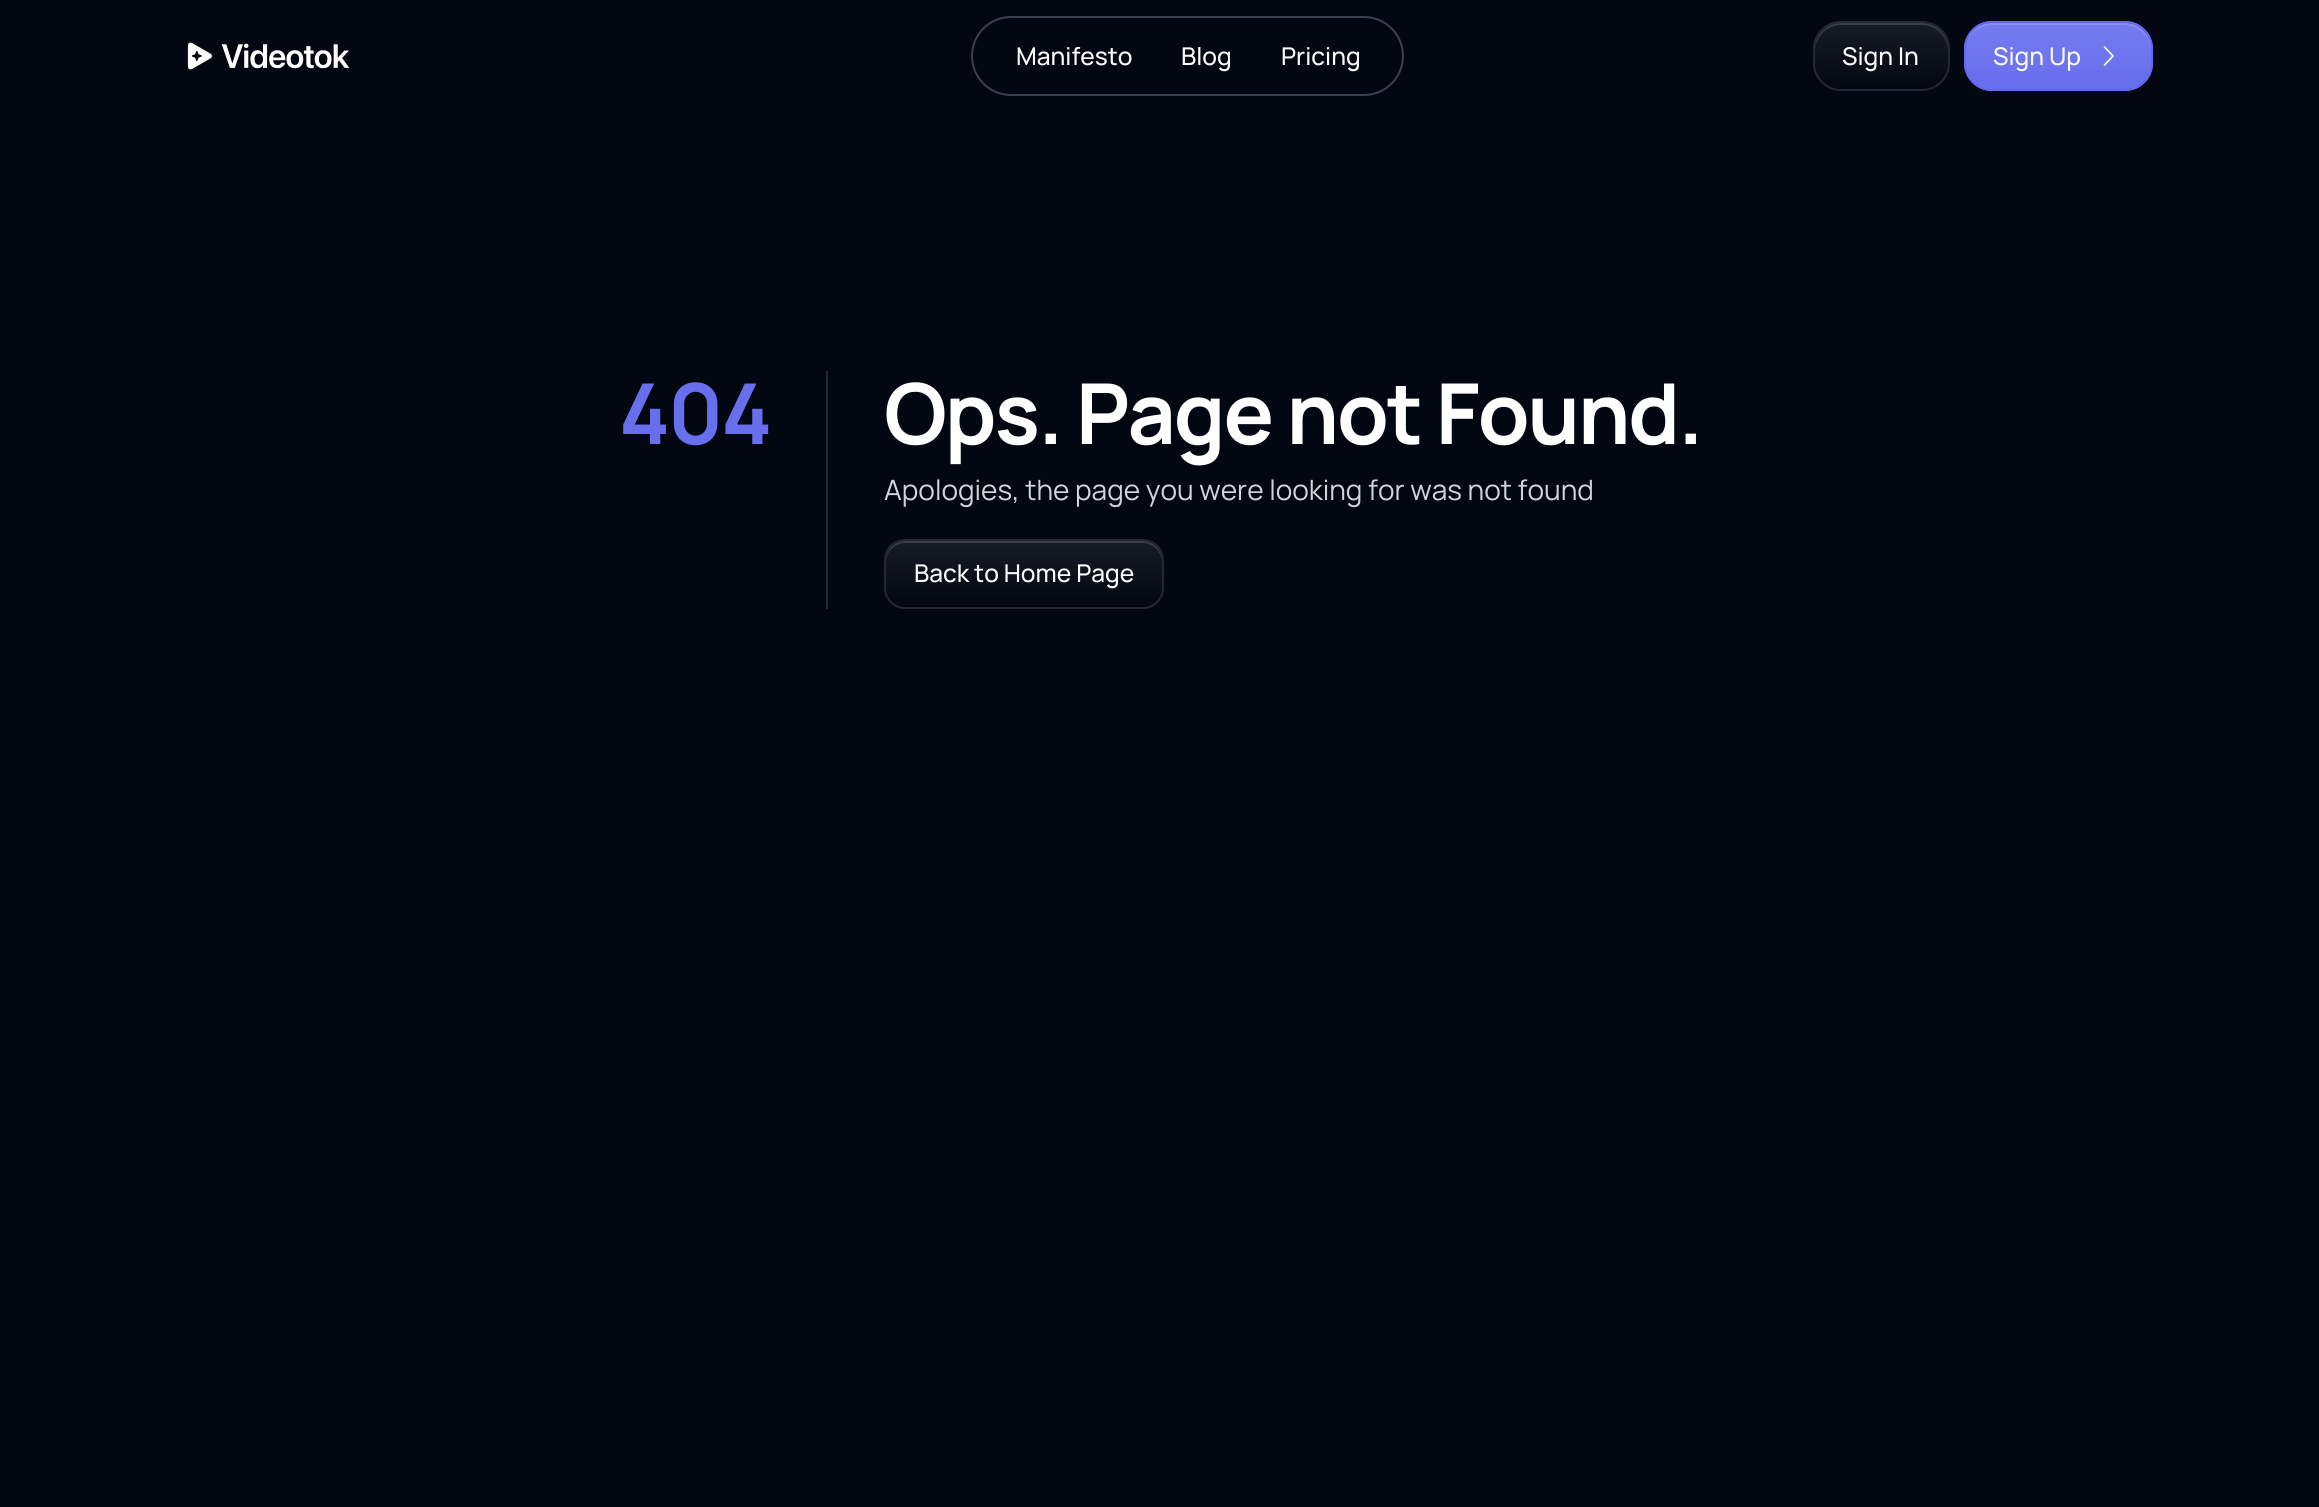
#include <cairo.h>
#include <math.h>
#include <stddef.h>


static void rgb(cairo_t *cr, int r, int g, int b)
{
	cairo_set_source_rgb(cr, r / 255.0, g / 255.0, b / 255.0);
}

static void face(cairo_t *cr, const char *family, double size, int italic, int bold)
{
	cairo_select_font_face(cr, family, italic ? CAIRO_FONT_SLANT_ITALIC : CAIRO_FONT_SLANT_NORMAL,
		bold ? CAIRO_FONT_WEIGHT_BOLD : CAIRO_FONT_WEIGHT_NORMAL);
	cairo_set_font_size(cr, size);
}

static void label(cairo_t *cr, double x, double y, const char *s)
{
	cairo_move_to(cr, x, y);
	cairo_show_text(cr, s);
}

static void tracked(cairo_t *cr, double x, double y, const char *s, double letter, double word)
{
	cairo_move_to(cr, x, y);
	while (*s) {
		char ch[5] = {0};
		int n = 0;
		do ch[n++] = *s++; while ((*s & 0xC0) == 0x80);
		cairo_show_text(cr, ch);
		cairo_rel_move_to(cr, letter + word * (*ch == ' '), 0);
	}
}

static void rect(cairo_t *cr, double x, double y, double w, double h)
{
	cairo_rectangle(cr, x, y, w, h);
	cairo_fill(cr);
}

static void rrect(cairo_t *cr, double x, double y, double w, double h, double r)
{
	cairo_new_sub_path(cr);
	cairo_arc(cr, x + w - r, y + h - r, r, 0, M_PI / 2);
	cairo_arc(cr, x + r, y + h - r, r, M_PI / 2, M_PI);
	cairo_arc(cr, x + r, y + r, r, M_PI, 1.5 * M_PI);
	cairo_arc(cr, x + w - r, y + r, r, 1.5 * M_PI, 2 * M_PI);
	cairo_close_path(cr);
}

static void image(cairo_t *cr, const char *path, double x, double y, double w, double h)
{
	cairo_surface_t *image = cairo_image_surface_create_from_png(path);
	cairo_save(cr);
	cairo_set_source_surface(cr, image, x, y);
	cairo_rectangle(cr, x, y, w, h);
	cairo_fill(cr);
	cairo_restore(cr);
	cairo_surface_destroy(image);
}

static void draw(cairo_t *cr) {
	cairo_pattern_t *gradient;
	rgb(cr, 3, 7, 18);
	cairo_paint(cr);
	image(cr, "image0.png", 187, 42, 163, 28);
	rrect(cr, 972, 17, 431, 78, 39);
	rgb(cr, 55, 65, 81);
	cairo_stroke(cr);
	face(cr, "Manrope Medium", 24.5, 0, 0);
	rgb(cr, 249, 250, 251);
	label(cr, 1016, 65, "Manifesto");
	label(cr, 1181, 65, "Blog");
	label(cr, 1281, 65, "Pricing");
	cairo_save(cr);
	rrect(cr, 1813, 21, 137, 70, 28);
	cairo_clip(cr);
	gradient = cairo_pattern_create_linear(1881, 23, 1881, 89);
	cairo_pattern_add_color_stop_rgba(gradient, 0, 0.09, 0.106, 0.145, 1);
	cairo_pattern_add_color_stop_rgba(gradient, 1, 0.012, 0.027, 0.071, 1);
	cairo_set_source(cr, gradient);
	cairo_pattern_destroy(gradient);
	rect(cr, 1813, 23, 137, 66);
	cairo_restore(cr);
	cairo_set_source_rgba(cr, 1, 1, 1, 0.16);
	cairo_new_path(cr);
	cairo_move_to(cr, 1841, 25);
	cairo_line_to(cr, 1922, 25);
	cairo_curve_to(cr, 1936, 25, 1948, 37, 1948, 52);
	cairo_line_to(cr, 1948, 49);
	cairo_curve_to(cr, 1948, 35, 1936, 23, 1922, 23);
	cairo_line_to(cr, 1841, 23);
	cairo_curve_to(cr, 1827, 23, 1815, 35, 1815, 49);
	cairo_line_to(cr, 1815, 52);
	cairo_curve_to(cr, 1815, 37, 1827, 25, 1841, 25);
	cairo_close_path(cr);
	cairo_fill(cr);
	rrect(cr, 1814, 22, 135, 68, 27);
	rgb(cr, 31, 41, 55);
	cairo_stroke(cr);
	rgb(cr, 249, 250, 251);
	label(cr, 1842, 65, "Sign In");
	rgb(cr, 104, 111, 237);
	rrect(cr, 1964, 21, 189, 70, 28);
	cairo_fill(cr);
	cairo_save(cr);
	rrect(cr, 1964, 21, 189, 70, 28);
	cairo_clip(cr);
	gradient = cairo_pattern_create_linear(2058, 23, 2058, 89);
	cairo_pattern_add_color_stop_rgba(gradient, 0, 1, 1, 1, 0.08);
	cairo_pattern_add_color_stop_rgba(gradient, 1, 1, 1, 1, 0);
	cairo_set_source(cr, gradient);
	cairo_pattern_destroy(gradient);
	rect(cr, 1964, 23, 189, 48);
	cairo_restore(cr);
	cairo_set_source_rgba(cr, 1, 1, 1, 0.16);
	cairo_new_path(cr);
	cairo_move_to(cr, 1992, 25);
	cairo_line_to(cr, 2124, 25);
	cairo_curve_to(cr, 2139, 25, 2151, 37, 2151, 52);
	cairo_line_to(cr, 2151, 49);
	cairo_curve_to(cr, 2151, 35, 2139, 23, 2125, 23);
	cairo_line_to(cr, 1991, 23);
	cairo_curve_to(cr, 1977, 23, 1965, 35, 1965, 49);
	cairo_line_to(cr, 1965, 52);
	cairo_curve_to(cr, 1965, 37, 1977, 25, 1992, 25);
	cairo_close_path(cr);
	cairo_fill(cr);
	rrect(cr, 1965, 22, 187, 68, 27);
	rgb(cr, 99, 102, 241);
	cairo_stroke(cr);
	rgb(cr, 249, 250, 251);
	label(cr, 1993, 65, "Sign Up");
	cairo_new_path(cr);
	cairo_move_to(cr, 2104.5, 47);
	cairo_line_to(cr, 2113, 56);
	cairo_line_to(cr, 2104.5, 65);
	cairo_set_line_width(cr, 1.7);
	cairo_set_line_cap(cr, CAIRO_LINE_CAP_ROUND);
	cairo_set_line_join(cr, CAIRO_LINE_JOIN_ROUND);
	cairo_stroke(cr);
	face(cr, "Manrope", 84, 0, 1);
	rgb(cr, 104, 111, 237);
	tracked(cr, 619, 444, "404", -2.1, 0);
	rgb(cr, 30, 41, 59);
	rect(cr, 826, 371, 2, 238);
	rgb(cr, 255, 255, 255);
	tracked(cr, 884, 444, "Ops. Page not Found.", -2.1, 0);
	face(cr, "Manrope", 28, 0, 0);
	rgb(cr, 209, 213, 219);
	label(cr, 884, 500, "Apologies, the page you were looking for was not found");
	cairo_save(cr);
	rrect(cr, 884, 539, 280, 70, 21);
	cairo_clip(cr);
	gradient = cairo_pattern_create_linear(1024, 541, 1024, 607);
	cairo_pattern_add_color_stop_rgba(gradient, 0, 0.09, 0.106, 0.145, 1);
	cairo_pattern_add_color_stop_rgba(gradient, 1, 0.012, 0.027, 0.071, 1);
	cairo_set_source(cr, gradient);
	cairo_pattern_destroy(gradient);
	rect(cr, 884, 541, 280, 66);
	cairo_restore(cr);
	cairo_set_source_rgba(cr, 1, 1, 1, 0.16);
	cairo_new_path(cr);
	cairo_move_to(cr, 905, 543);
	cairo_line_to(cr, 1143, 543);
	cairo_curve_to(cr, 1153, 543, 1162, 552, 1162, 563);
	cairo_line_to(cr, 1162, 560);
	cairo_curve_to(cr, 1162, 550, 1153, 541, 1143, 541);
	cairo_line_to(cr, 905, 541);
	cairo_curve_to(cr, 895, 541, 886, 550, 886, 560);
	cairo_line_to(cr, 886, 563);
	cairo_curve_to(cr, 886, 552, 894, 543, 905, 543);
	cairo_close_path(cr);
	cairo_fill(cr);
	rrect(cr, 885, 540, 278, 68, 20);
	rgb(cr, 31, 41, 55);
	cairo_set_line_width(cr, 2);
	cairo_set_line_cap(cr, CAIRO_LINE_CAP_BUTT);
	cairo_set_line_join(cr, CAIRO_LINE_JOIN_MITER);
	cairo_stroke(cr);
	face(cr, "Manrope Medium", 24.5, 0, 0);
	rgb(cr, 249, 250, 251);
	label(cr, 914, 582, "Back to Home Page");
}

int main(void) {
	cairo_surface_t *surface = cairo_image_surface_create(CAIRO_FORMAT_RGB24, 2319, 1507);
	cairo_t *cr = cairo_create(surface);
	cairo_font_options_t *options = cairo_font_options_create();
	cairo_font_options_set_hint_metrics(options, CAIRO_HINT_METRICS_OFF);
	cairo_font_options_set_hint_style(options, CAIRO_HINT_STYLE_NONE);
	cairo_set_font_options(cr, options);
	cairo_set_miter_limit(cr, 4);
	draw(cr);
	cairo_surface_write_to_png(surface, "render.png");
	cairo_font_options_destroy(options);
	cairo_destroy(cr);
	cairo_surface_destroy(surface);
	return 0;
}
